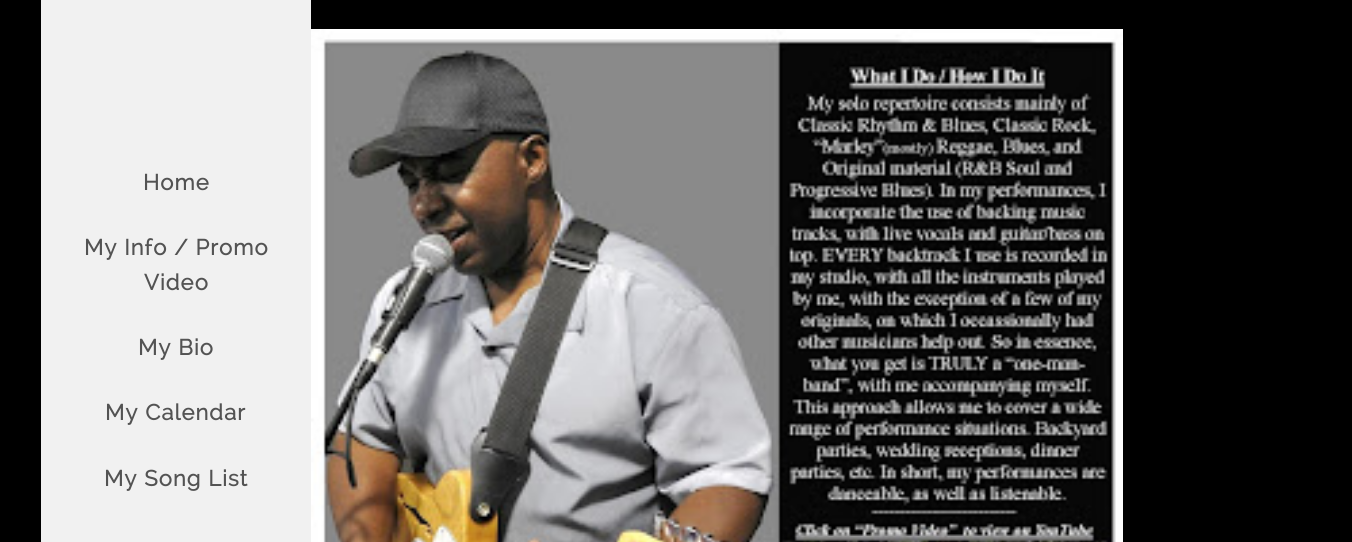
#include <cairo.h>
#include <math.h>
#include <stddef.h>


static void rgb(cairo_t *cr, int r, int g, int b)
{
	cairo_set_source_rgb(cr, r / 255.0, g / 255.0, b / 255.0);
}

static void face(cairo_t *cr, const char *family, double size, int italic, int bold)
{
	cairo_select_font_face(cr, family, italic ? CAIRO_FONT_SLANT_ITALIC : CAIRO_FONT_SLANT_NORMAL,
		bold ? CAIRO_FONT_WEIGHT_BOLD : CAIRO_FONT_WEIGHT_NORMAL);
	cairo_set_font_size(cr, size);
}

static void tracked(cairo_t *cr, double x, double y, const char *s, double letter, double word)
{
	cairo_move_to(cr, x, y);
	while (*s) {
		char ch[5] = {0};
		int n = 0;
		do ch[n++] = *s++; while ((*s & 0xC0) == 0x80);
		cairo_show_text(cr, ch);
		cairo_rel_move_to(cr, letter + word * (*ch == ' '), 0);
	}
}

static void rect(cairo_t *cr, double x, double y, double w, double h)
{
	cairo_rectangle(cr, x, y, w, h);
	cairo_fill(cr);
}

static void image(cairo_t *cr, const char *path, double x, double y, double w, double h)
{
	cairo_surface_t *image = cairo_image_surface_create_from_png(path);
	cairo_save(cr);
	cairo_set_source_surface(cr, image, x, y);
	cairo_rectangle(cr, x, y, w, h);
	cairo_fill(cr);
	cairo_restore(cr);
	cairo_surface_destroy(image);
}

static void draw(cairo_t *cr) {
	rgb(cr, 0, 0, 0);
	cairo_paint(cr);
	rgb(cr, 241, 241, 241);
	rect(cr, 41, 0, 270, 542);
	face(cr, "Raleway", 22, 0, 1);
	rgb(cr, 83, 83, 83);
	tracked(cr, 143, 190, "Home", 1.1, 0);
	tracked(cr, 84, 255, "My Info / Promo", 1.1, 0);
	tracked(cr, 144, 290, "Video", 1.1, 0);
	tracked(cr, 138, 355, "My Bio", 1.1, 0);
	tracked(cr, 105, 420, "My Calendar", 1.1, 0);
	tracked(cr, 104, 486, "My Song List", 1.1, 0);
	image(cr, "image0.png", 311, 29, 812, 513);
}

int main(void) {
	cairo_surface_t *surface = cairo_image_surface_create(CAIRO_FORMAT_RGB24, 1352, 542);
	cairo_t *cr = cairo_create(surface);
	cairo_font_options_t *options = cairo_font_options_create();
	cairo_font_options_set_hint_metrics(options, CAIRO_HINT_METRICS_OFF);
	cairo_font_options_set_hint_style(options, CAIRO_HINT_STYLE_NONE);
	cairo_set_font_options(cr, options);
	cairo_set_miter_limit(cr, 4);
	draw(cr);
	cairo_surface_write_to_png(surface, "render.png");
	cairo_font_options_destroy(options);
	cairo_destroy(cr);
	cairo_surface_destroy(surface);
	return 0;
}
